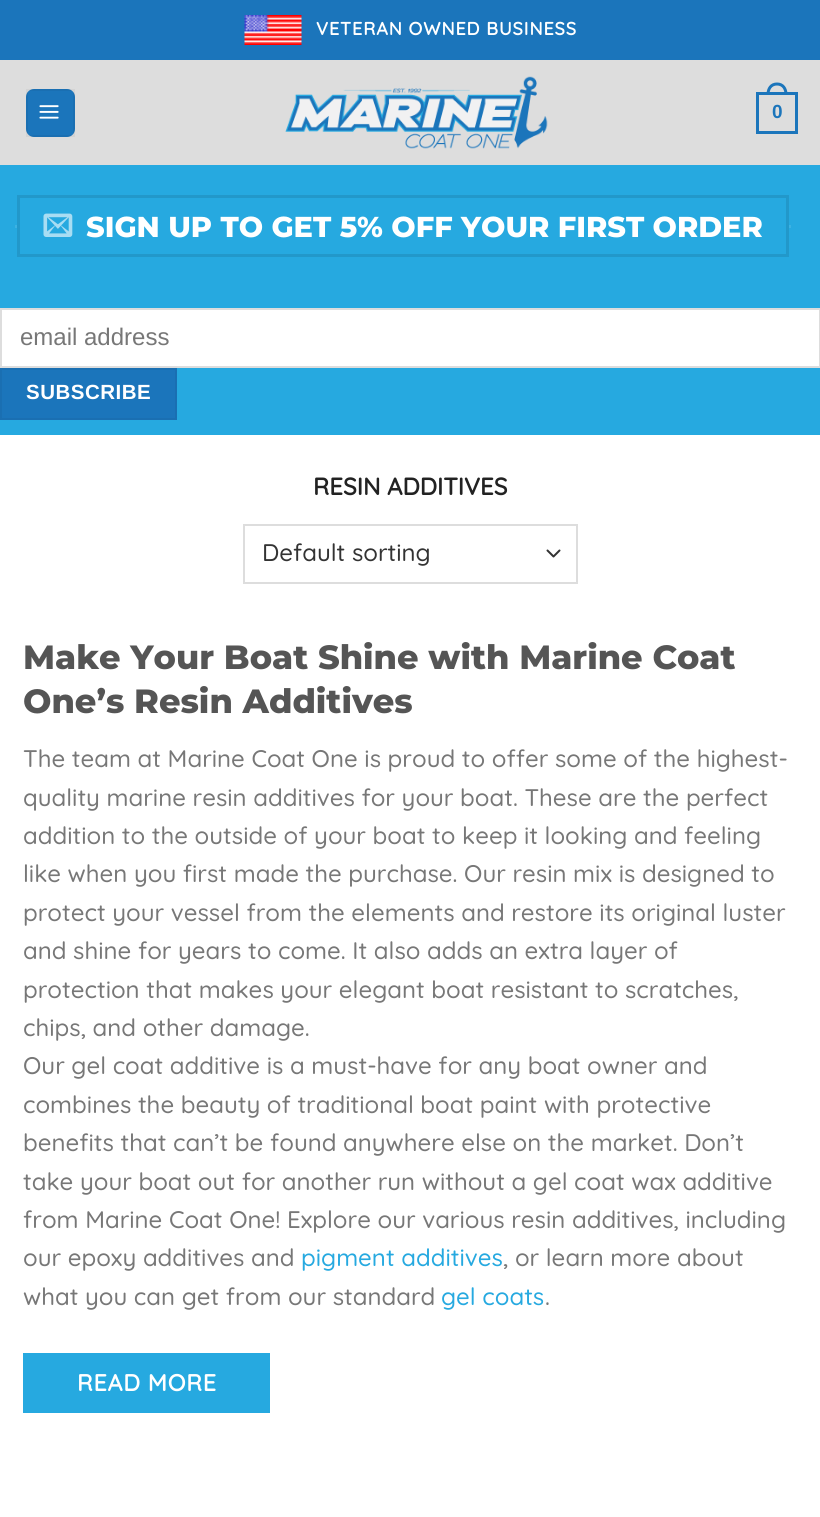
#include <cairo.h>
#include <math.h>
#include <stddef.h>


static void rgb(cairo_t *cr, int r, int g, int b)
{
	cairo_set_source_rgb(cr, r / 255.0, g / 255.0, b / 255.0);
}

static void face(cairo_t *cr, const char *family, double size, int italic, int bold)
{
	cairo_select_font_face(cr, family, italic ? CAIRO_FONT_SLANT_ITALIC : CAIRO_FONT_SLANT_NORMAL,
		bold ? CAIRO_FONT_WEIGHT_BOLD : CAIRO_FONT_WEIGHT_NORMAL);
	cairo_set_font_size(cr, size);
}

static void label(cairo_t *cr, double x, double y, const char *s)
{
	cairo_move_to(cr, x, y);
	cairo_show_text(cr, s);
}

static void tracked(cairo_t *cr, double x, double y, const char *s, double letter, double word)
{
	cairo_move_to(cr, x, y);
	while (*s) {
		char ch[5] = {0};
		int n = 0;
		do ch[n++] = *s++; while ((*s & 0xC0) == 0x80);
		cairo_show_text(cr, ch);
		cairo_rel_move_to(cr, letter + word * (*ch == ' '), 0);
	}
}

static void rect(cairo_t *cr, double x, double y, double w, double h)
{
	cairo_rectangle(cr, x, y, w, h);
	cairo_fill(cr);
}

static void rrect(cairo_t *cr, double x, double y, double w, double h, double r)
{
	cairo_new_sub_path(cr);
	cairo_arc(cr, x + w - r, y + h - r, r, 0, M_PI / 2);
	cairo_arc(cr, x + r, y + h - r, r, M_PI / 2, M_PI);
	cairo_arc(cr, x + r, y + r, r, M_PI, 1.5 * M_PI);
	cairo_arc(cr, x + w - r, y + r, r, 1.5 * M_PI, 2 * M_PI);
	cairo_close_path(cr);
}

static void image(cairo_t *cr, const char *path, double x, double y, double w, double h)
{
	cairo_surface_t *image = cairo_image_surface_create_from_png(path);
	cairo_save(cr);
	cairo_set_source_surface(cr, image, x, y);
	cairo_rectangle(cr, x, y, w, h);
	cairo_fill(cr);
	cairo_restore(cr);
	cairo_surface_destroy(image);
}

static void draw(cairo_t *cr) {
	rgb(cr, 255, 255, 255);
	cairo_paint(cr);
	rgb(cr, 27, 117, 187);
	rect(cr, 0, 0, 820, 60);
	image(cr, "image0.png", 244, 15, 58, 30);
	face(cr, "Quicksand", 18, 0, 1);
	rgb(cr, 255, 255, 255);
	tracked(cr, 316, 35, "VETERAN OWNED BUSINESS", 0.9, 0);
	rgb(cr, 221, 221, 221);
	rect(cr, 0, 60, 820, 105);
	rgb(cr, 27, 117, 187);
	rrect(cr, 26, 89, 49, 48, 8);
	cairo_fill(cr);
	cairo_rectangle(cr, 27, 90, 47, 46);
	cairo_set_source_rgba(cr, 0, 0, 0, 0.05);
	cairo_stroke(cr);
	image(cr, "image1.png", 39, 105, 20, 14);
	image(cr, "image2.png", 285, 76, 263, 73);
	cairo_rectangle(cr, 757.5, 93.5, 39, 39);
	rgb(cr, 27, 117, 187);
	cairo_set_line_width(cr, 3);
	cairo_stroke(cr);
	cairo_set_fill_rule(cr, CAIRO_FILL_RULE_EVEN_ODD);
	cairo_new_path(cr);
	cairo_move_to(cr, 777, 82.5);
	cairo_curve_to(cr, 784, 82.5, 787.5, 88, 787.5, 94.5);
	cairo_line_to(cr, 766.5, 94.5);
	cairo_curve_to(cr, 766.5, 88, 770, 82.5, 777, 82.5);
	cairo_close_path(cr);
	cairo_move_to(cr, 777, 85.5);
	cairo_curve_to(cr, 782.5, 85.5, 784.5, 90, 784.5, 94.5);
	cairo_line_to(cr, 769.5, 94.5);
	cairo_curve_to(cr, 769.5, 90, 771.5, 85.5, 777, 85.5);
	cairo_close_path(cr);
	cairo_fill(cr);
	face(cr, "Liberation Sans", 19, 0, 1);
	label(cr, 772, 118, "0");
	rgb(cr, 38, 169, 224);
	rect(cr, 0, 165, 820, 270);
	rgb(cr, 60, 178, 227);
	rect(cr, 15, 225, 2, 3);
	cairo_rectangle(cr, 18.5, 196.5, 769, 59);
	rgb(cr, 34, 152, 202);
	cairo_stroke(cr);
	image(cr, "image3.png", 43, 213, 30, 24);
	face(cr, "Montserrat ExtraBold", 28.8, 0, 0);
	rgb(cr, 255, 255, 255);
	label(cr, 86, 237, "SIGN UP TO GET 5% OFF YOUR FIRST ORDER");
	rgb(cr, 60, 178, 227);
	rect(cr, 789, 225, 2, 3);
	rgb(cr, 255, 255, 255);
	cairo_rectangle(cr, 1, 309, 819, 58);
	cairo_fill_preserve(cr);
	rgb(cr, 221, 221, 221);
	cairo_set_line_width(cr, 2);
	cairo_stroke(cr);
	face(cr, "Liberation Sans", 24, 0, 0);
	rgb(cr, 119, 119, 119);
	label(cr, 20, 345, "email address");
	rgb(cr, 27, 117, 187);
	cairo_rectangle(cr, 1, 369, 175, 50);
	cairo_fill_preserve(cr);
	rgb(cr, 26, 111, 178);
	cairo_stroke(cr);
	face(cr, "Liberation Sans", 20.5, 0, 1);
	rgb(cr, 255, 255, 255);
	tracked(cr, 26, 399, "SUBSCRIBE", 0.5, 0);
	face(cr, "Quicksand", 24, 0, 1);
	rgb(cr, 34, 34, 34);
	label(cr, 313, 495, "RESIN ADDITIVES");
	cairo_new_path(cr);
	cairo_move_to(cr, 547.5, 550.5);
	cairo_line_to(cr, 553.5, 556.5);
	cairo_line_to(cr, 559.5, 550.5);
	rgb(cr, 51, 51, 51);
	cairo_set_line_cap(cr, CAIRO_LINE_CAP_ROUND);
	cairo_set_line_join(cr, CAIRO_LINE_JOIN_ROUND);
	cairo_stroke(cr);
	cairo_rectangle(cr, 244, 525, 333, 58);
	rgb(cr, 221, 221, 221);
	cairo_set_line_cap(cr, CAIRO_LINE_CAP_BUTT);
	cairo_set_line_join(cr, CAIRO_LINE_JOIN_MITER);
	cairo_stroke(cr);
	face(cr, "Quicksand Medium", 24, 0, 0);
	rgb(cr, 51, 51, 51);
	label(cr, 262, 561, "Default sorting");
	face(cr, "Montserrat ExtraBold", 33.6, 0, 0);
	rgb(cr, 85, 85, 85);
	label(cr, 23, 669, "Make Your Boat Shine with Marine Coat");
	label(cr, 23, 713, "One’s Resin Additives");
	face(cr, "Quicksand Medium", 24, 0, 0);
	rgb(cr, 119, 119, 119);
	label(cr, 23, 767, "The team at Marine Coat One is proud to offer some of the highest-");
	label(cr, 23, 806, "quality marine resin additives for your boat. These are the perfect");
	label(cr, 23, 844, "addition to the outside of your boat to keep it looking and feeling");
	label(cr, 23, 882, "like when you first made the purchase. Our resin mix is designed to");
	label(cr, 23, 921, "protect your vessel from the elements and restore its original luster");
	label(cr, 23, 959, "and shine for years to come. It also adds an extra layer of");
	label(cr, 23, 998, "protection that makes your elegant boat resistant to scratches,");
	label(cr, 23, 1036, "chips, and other damage.");
	label(cr, 23, 1074, "Our gel coat additive is a must-have for any boat owner and");
	label(cr, 23, 1113, "combines the beauty of traditional boat paint with protective");
	label(cr, 23, 1151, "benefits that can’t be found anywhere else on the market. Don’t");
	label(cr, 23, 1190, "take your boat out for another run without a gel coat wax additive");
	label(cr, 23, 1228, "from Marine Coat One! Explore our various resin additives, including");
	label(cr, 23, 1266, "our epoxy additives and");
	rgb(cr, 38, 169, 224);
	label(cr, 301, 1266, "pigment additives");
	rgb(cr, 119, 119, 119);
	label(cr, 503, 1266, ", or learn more about");
	label(cr, 23, 1305, "what you can get from our standard");
	rgb(cr, 38, 169, 224);
	label(cr, 441, 1305, "gel coats");
	rgb(cr, 119, 119, 119);
	label(cr, 545, 1305, ".");
	rgb(cr, 38, 169, 224);
	rect(cr, 23, 1353, 247, 60);
	face(cr, "Quicksand", 23.25, 0, 1);
	rgb(cr, 255, 255, 255);
	tracked(cr, 77, 1391, "READ MORE", 0.75, 0);
}

int main(void) {
	cairo_surface_t *surface = cairo_image_surface_create(CAIRO_FORMAT_RGB24, 820, 1517);
	cairo_t *cr = cairo_create(surface);
	cairo_font_options_t *options = cairo_font_options_create();
	cairo_font_options_set_hint_metrics(options, CAIRO_HINT_METRICS_OFF);
	cairo_font_options_set_hint_style(options, CAIRO_HINT_STYLE_NONE);
	cairo_set_font_options(cr, options);
	cairo_set_miter_limit(cr, 4);
	draw(cr);
	cairo_surface_write_to_png(surface, "render.png");
	cairo_font_options_destroy(options);
	cairo_destroy(cr);
	cairo_surface_destroy(surface);
	return 0;
}
